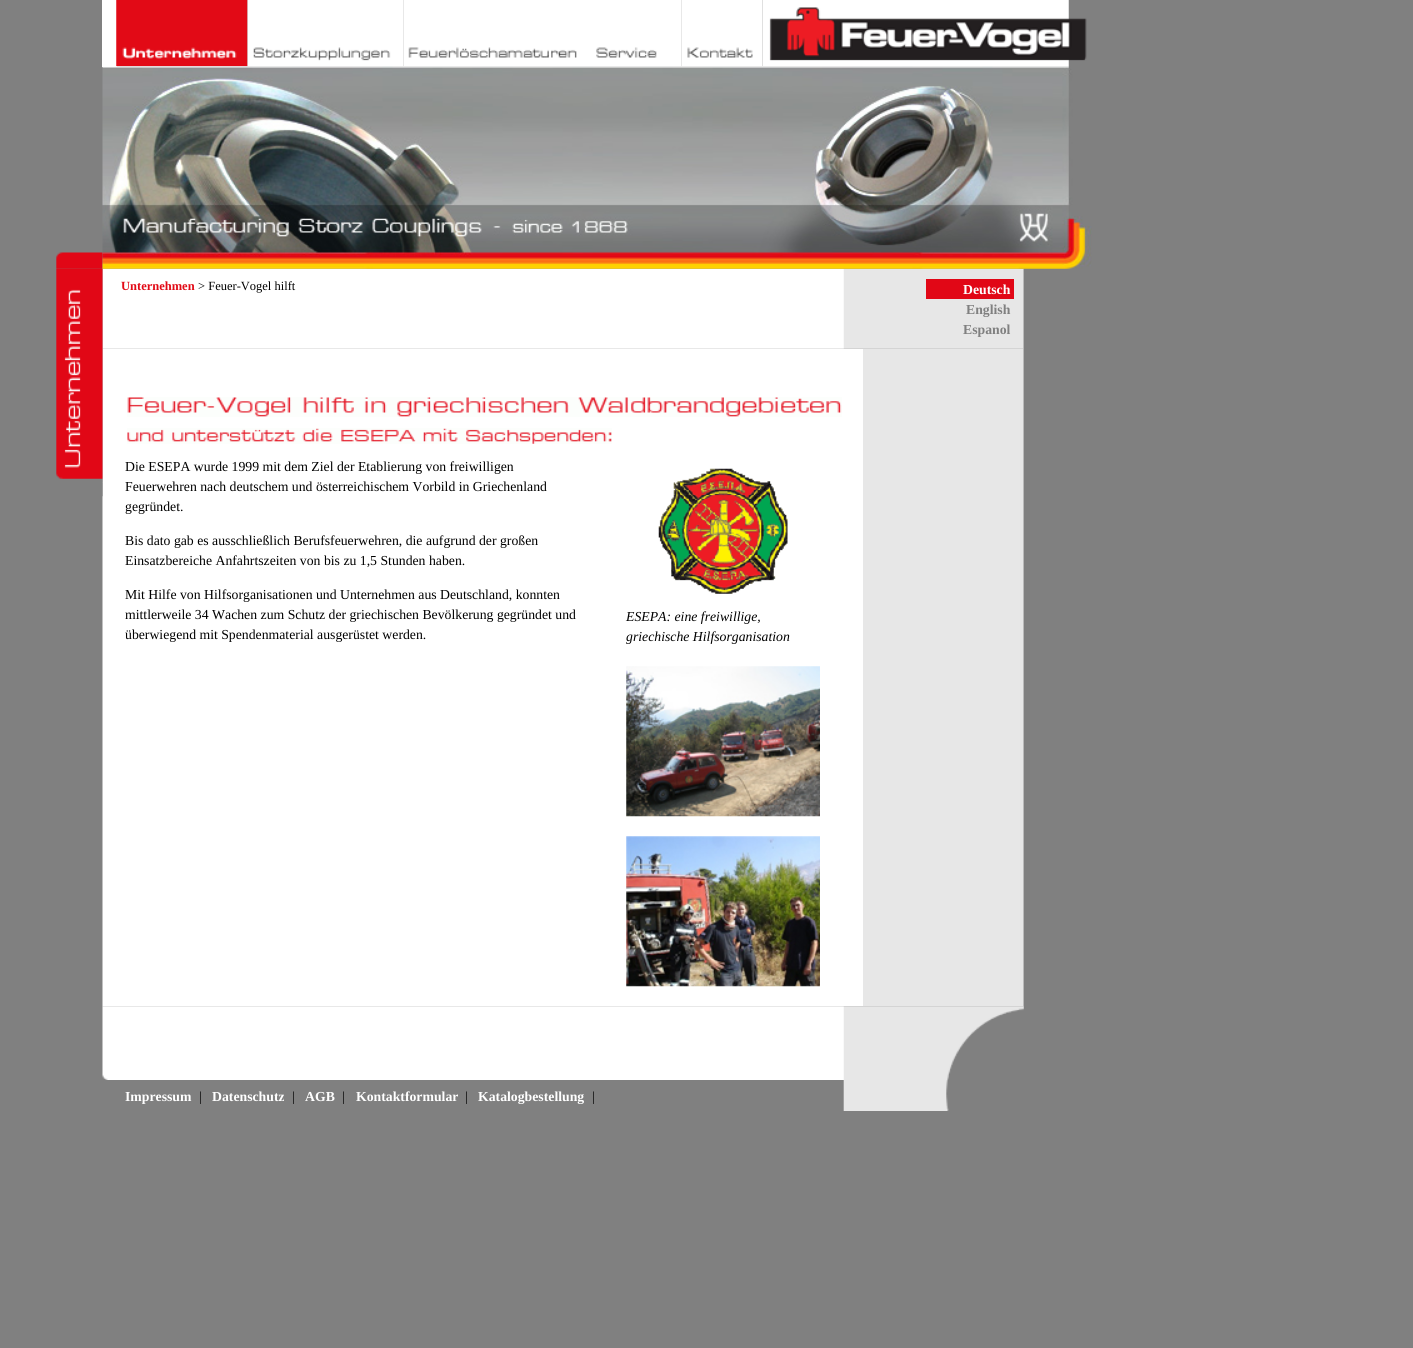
#include <cairo.h>
#include <math.h>
#include <stddef.h>


static void rgb(cairo_t *cr, int r, int g, int b)
{
	cairo_set_source_rgb(cr, r / 255.0, g / 255.0, b / 255.0);
}

static void face(cairo_t *cr, const char *family, double size, int italic, int bold)
{
	cairo_select_font_face(cr, family, italic ? CAIRO_FONT_SLANT_ITALIC : CAIRO_FONT_SLANT_NORMAL,
		bold ? CAIRO_FONT_WEIGHT_BOLD : CAIRO_FONT_WEIGHT_NORMAL);
	cairo_set_font_size(cr, size);
}

static void label(cairo_t *cr, double x, double y, const char *s)
{
	cairo_move_to(cr, x, y);
	cairo_show_text(cr, s);
}

static void rect(cairo_t *cr, double x, double y, double w, double h)
{
	cairo_rectangle(cr, x, y, w, h);
	cairo_fill(cr);
}

static void image(cairo_t *cr, const char *path, double x, double y, double w, double h)
{
	cairo_surface_t *image = cairo_image_surface_create_from_png(path);
	cairo_save(cr);
	cairo_set_source_surface(cr, image, x, y);
	cairo_rectangle(cr, x, y, w, h);
	cairo_fill(cr);
	cairo_restore(cr);
	cairo_surface_destroy(image);
}

static void draw(cairo_t *cr) {
	rgb(cr, 128, 128, 128);
	cairo_paint(cr);
	image(cr, "image10.png", 102, 268, 922, 81);
	image(cr, "image0.png", 56, 252, 47, 17);
	image(cr, "image11.png", 1023, 269, 1, 80);
	image(cr, "image12.png", 102, 348, 922, 659);
	image(cr, "image1.png", 56, 268, 47, 215);
	image(cr, "image2.png", 102, 482, 1, 15);
	rgb(cr, 255, 255, 255);
	rect(cr, 102, 0, 15, 67);
	image(cr, "image3.png", 116, 0, 132, 67);
	image(cr, "image4.png", 247, 0, 157, 67);
	image(cr, "image5.png", 403, 0, 187, 67);
	image(cr, "image6.png", 590, 0, 92, 67);
	image(cr, "image7.png", 681, 0, 82, 67);
	image(cr, "image8.png", 762, 0, 325, 67);
	image(cr, "image9.png", 102, 66, 990, 203);
	face(cr, "Liberation Serif", 12.5, 0, 1);
	rgb(cr, 226, 10, 22);
	label(cr, 121, 290, "Unternehmen");
	face(cr, "Liberation Serif", 12.5, 0, 0);
	rgb(cr, 0, 0, 0);
	label(cr, 198, 290, "> Feuer-Vogel hilft");
	rgb(cr, 225, 7, 22);
	rect(cr, 926, 279, 88, 20);
	face(cr, "Liberation Serif", 13.75, 0, 1);
	rgb(cr, 255, 255, 255);
	label(cr, 963, 294, "Deutsch");
	rgb(cr, 128, 128, 128);
	label(cr, 966, 314, "English");
	label(cr, 963, 334, "Espanol");
	rgb(cr, 255, 255, 255);
	rect(cr, 843, 349, 20, 657);
	image(cr, "image13.png", 127, 397, 715, 20);
	image(cr, "image14.png", 127, 428, 485, 16);
	face(cr, "Liberation Serif", 13.75, 0, 0);
	rgb(cr, 0, 0, 0);
	label(cr, 125, 471, "Die ESEPA wurde 1999 mit dem Ziel der Etablierung von freiwilligen");
	label(cr, 125, 491, "Feuerwehren nach deutschem und österreichischem Vorbild in Griechenland");
	label(cr, 125, 511, "gegründet.");
	label(cr, 125, 545, "Bis dato gab es ausschließlich Berufsfeuerwehren, die aufgrund der großen");
	label(cr, 125, 565, "Einsatzbereiche Anfahrtszeiten von bis zu 1,5 Stunden haben.");
	label(cr, 125, 599, "Mit Hilfe von Hilfsorganisationen und Unternehmen aus Deutschland, konnten");
	label(cr, 125, 619, "mittlerweile 34 Wachen zum Schutz der griechischen Bevölkerung gegründet und");
	label(cr, 125, 639, "überwiegend mit Spendenmaterial ausgerüstet werden.");
	image(cr, "image15.png", 658, 468, 130, 126);
	face(cr, "Liberation Serif", 13.75, 1, 0);
	label(cr, 626, 621, "ESEPA: eine freiwillige,");
	label(cr, 626, 641, "griechische Hilfsorganisation");
	image(cr, "image16.png", 626, 666, 194, 151);
	image(cr, "image17.png", 626, 836, 194, 151);
	rgb(cr, 186, 186, 186);
	rect(cr, 1023, 349, 1, 657);
	image(cr, "image18.png", 102, 1006, 922, 74);
	image(cr, "image19.png", 843, 1080, 106, 31);
	face(cr, "Liberation Serif", 13.75, 0, 1);
	rgb(cr, 255, 255, 255);
	label(cr, 125, 1101, "Impressum");
	face(cr, "Liberation Serif", 13.75, 0, 0);
	rgb(cr, 0, 0, 0);
	label(cr, 199, 1101, "|");
	face(cr, "Liberation Serif", 13.75, 0, 1);
	rgb(cr, 255, 255, 255);
	label(cr, 212, 1101, "Datenschutz");
	face(cr, "Liberation Serif", 13.75, 0, 0);
	rgb(cr, 0, 0, 0);
	label(cr, 292, 1101, "|");
	face(cr, "Liberation Serif", 13.75, 0, 1);
	rgb(cr, 255, 255, 255);
	label(cr, 305, 1101, "AGB");
	face(cr, "Liberation Serif", 13.75, 0, 0);
	rgb(cr, 0, 0, 0);
	label(cr, 342, 1101, "|");
	face(cr, "Liberation Serif", 13.75, 0, 1);
	rgb(cr, 255, 255, 255);
	label(cr, 356, 1101, "Kontaktformular");
	face(cr, "Liberation Serif", 13.75, 0, 0);
	rgb(cr, 0, 0, 0);
	label(cr, 465, 1101, "|");
	face(cr, "Liberation Serif", 13.75, 0, 1);
	rgb(cr, 255, 255, 255);
	label(cr, 478, 1101, "Katalogbestellung");
	face(cr, "Liberation Serif", 13.75, 0, 0);
	rgb(cr, 0, 0, 0);
	label(cr, 592, 1101, "|");
}

int main(void) {
	cairo_surface_t *surface = cairo_image_surface_create(CAIRO_FORMAT_RGB24, 1413, 1348);
	cairo_t *cr = cairo_create(surface);
	cairo_font_options_t *options = cairo_font_options_create();
	cairo_font_options_set_hint_metrics(options, CAIRO_HINT_METRICS_OFF);
	cairo_font_options_set_hint_style(options, CAIRO_HINT_STYLE_NONE);
	cairo_set_font_options(cr, options);
	cairo_set_miter_limit(cr, 4);
	draw(cr);
	cairo_surface_write_to_png(surface, "render.png");
	cairo_font_options_destroy(options);
	cairo_destroy(cr);
	cairo_surface_destroy(surface);
	return 0;
}
